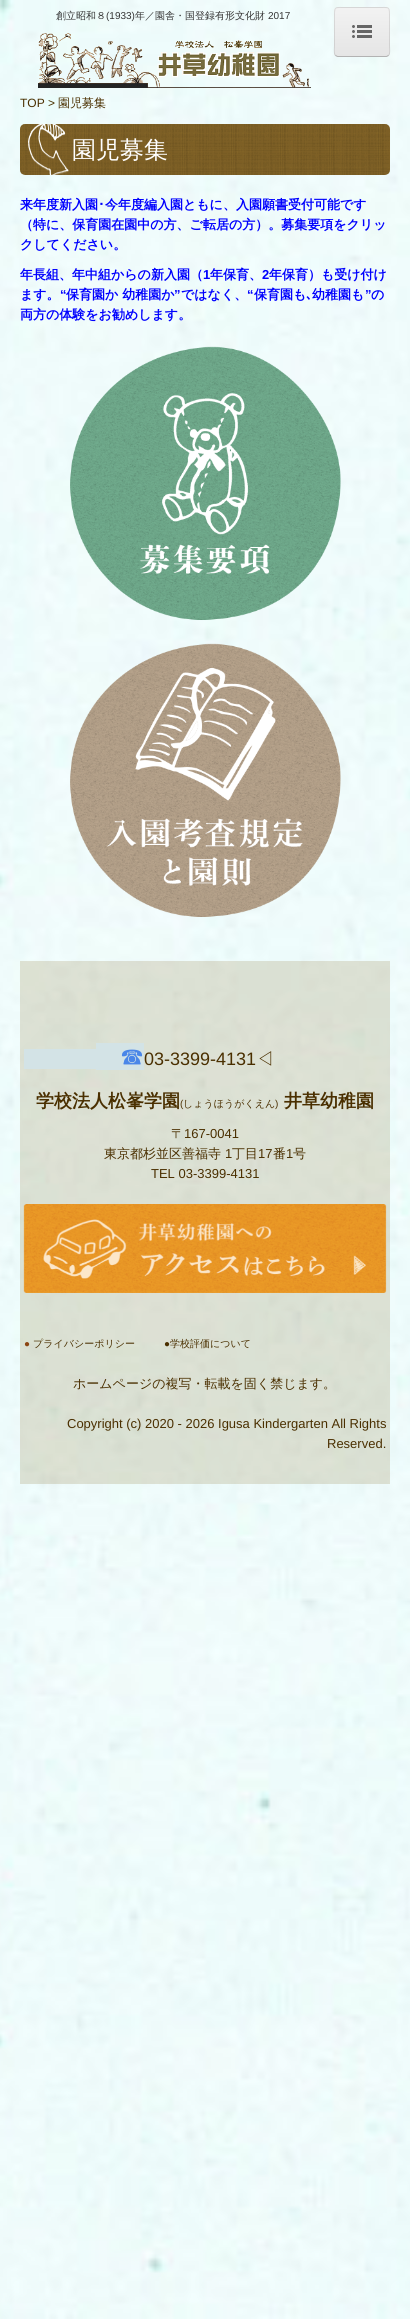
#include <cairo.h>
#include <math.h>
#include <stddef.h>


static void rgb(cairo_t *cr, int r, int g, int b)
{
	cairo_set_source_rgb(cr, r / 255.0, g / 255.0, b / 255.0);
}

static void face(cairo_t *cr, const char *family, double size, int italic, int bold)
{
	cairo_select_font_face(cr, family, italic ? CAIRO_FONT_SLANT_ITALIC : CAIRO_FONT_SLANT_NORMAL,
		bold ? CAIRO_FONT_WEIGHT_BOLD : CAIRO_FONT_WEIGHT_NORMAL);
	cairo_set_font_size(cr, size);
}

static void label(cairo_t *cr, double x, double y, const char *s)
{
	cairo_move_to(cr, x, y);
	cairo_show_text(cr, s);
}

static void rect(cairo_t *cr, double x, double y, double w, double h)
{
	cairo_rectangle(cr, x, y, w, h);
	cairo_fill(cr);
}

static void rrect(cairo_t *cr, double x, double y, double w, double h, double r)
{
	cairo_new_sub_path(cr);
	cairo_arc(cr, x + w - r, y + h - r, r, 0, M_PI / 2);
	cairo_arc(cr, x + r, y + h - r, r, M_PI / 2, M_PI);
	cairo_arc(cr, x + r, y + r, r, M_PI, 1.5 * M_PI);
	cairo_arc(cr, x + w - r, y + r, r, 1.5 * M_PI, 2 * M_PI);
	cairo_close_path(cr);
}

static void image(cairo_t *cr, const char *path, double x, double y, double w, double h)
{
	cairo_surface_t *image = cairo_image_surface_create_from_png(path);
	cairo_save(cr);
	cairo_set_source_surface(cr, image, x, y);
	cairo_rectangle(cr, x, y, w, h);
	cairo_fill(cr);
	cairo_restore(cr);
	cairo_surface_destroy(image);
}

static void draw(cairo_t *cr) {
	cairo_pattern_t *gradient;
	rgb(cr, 255, 255, 255);
	cairo_paint(cr);
	image(cr, "image0.png", 0, 0, 410, 2319);
	face(cr, "WenQuanYi Zen Hei Medium", 10, 0, 0);
	rgb(cr, 51, 51, 51);
	label(cr, 56, 19, "創立昭和８");
	face(cr, "Liberation Sans", 10, 0, 0);
	label(cr, 106, 19, "(1933)");
	face(cr, "WenQuanYi Zen Hei Medium", 10, 0, 0);
	label(cr, 135, 19, "年／園舎・国登録有形文化財");
	face(cr, "Liberation Sans", 10, 0, 0);
	label(cr, 268, 19, "2017");
	image(cr, "image1.png", 38, 33, 273, 55);
	rgb(cr, 237, 237, 237);
	rrect(cr, 334, 7, 56, 50, 4);
	cairo_fill(cr);
	cairo_save(cr);
	rrect(cr, 334, 7, 56, 50, 4);
	cairo_clip(cr);
	gradient = cairo_pattern_create_linear(362, 8, 362, 56);
	cairo_pattern_add_color_stop_rgba(gradient, 0, 0.949, 0.949, 0.949, 1);
	cairo_pattern_add_color_stop_rgba(gradient, 1, 0.898, 0.898, 0.898, 1);
	cairo_set_source(cr, gradient);
	cairo_pattern_destroy(gradient);
	rect(cr, 334, 8, 56, 48);
	cairo_restore(cr);
	cairo_new_path(cr);
	cairo_move_to(cr, 388.5, 55.5);
	cairo_line_to(cr, 386.5, 56.5);
	cairo_line_to(cr, 337.5, 56.5);
	cairo_line_to(cr, 335.5, 55.5);
	cairo_set_source_rgba(cr, 0, 0, 0, 0.25);
	cairo_set_line_width(cr, 1);
	cairo_stroke(cr);
	cairo_new_path(cr);
	cairo_move_to(cr, 335.5, 55.5);
	cairo_curve_to(cr, 333.5, 53.5, 334.5, 47.5, 334.5, 46);
	cairo_line_to(cr, 334.5, 18);
	cairo_curve_to(cr, 334.5, 6, 334, 7.5, 346, 7.5);
	cairo_line_to(cr, 378, 7.5);
	cairo_curve_to(cr, 390, 7.5, 389.5, 6, 389.5, 18);
	cairo_line_to(cr, 389.5, 46);
	cairo_curve_to(cr, 389.5, 47.5, 390.5, 53.5, 388.5, 55.5);
	cairo_set_source_rgba(cr, 0, 0, 0, 0.1);
	cairo_stroke(cr);
	image(cr, "image2.png", 352, 25, 20, 13);
	face(cr, "Liberation Sans", 12, 0, 0);
	rgb(cr, 74, 47, 0);
	label(cr, 20, 107, "TOP >");
	face(cr, "WenQuanYi Zen Hei Medium", 12, 0, 0);
	label(cr, 58, 107, "園児募集");
	image(cr, "image3.png", 20, 124, 370, 51);
	face(cr, "WenQuanYi Zen Hei Medium", 24, 0, 0);
	rgb(cr, 255, 255, 255);
	label(cr, 72, 158, "園児募集");
	face(cr, "WenQuanYi Zen Hei", 13, 0, 1);
	rgb(cr, 0, 0, 254);
	label(cr, 20, 209, "来年度新入園");
	face(cr, "IPAPGothic", 13, 0, 1);
	label(cr, 98, 209, "･");
	face(cr, "WenQuanYi Zen Hei", 13, 0, 1);
	label(cr, 105, 209, "今年度編入園ともに、入園願書受付可能です");
	label(cr, 20, 229, "（特に、保育園在園中の方、ご転居の方）。募集要項をクリッ");
	label(cr, 20, 249, "クしてください。");
	label(cr, 20, 279, "年長組、年中組からの新入園（");
	face(cr, "Liberation Sans", 13, 0, 1);
	label(cr, 203, 279, "1");
	face(cr, "WenQuanYi Zen Hei", 13, 0, 1);
	label(cr, 210, 279, "年保育、");
	face(cr, "Liberation Sans", 13, 0, 1);
	label(cr, 262, 279, "2");
	face(cr, "WenQuanYi Zen Hei", 13, 0, 1);
	label(cr, 269, 279, "年保育）も受け付け");
	label(cr, 20, 299, "ます。");
	face(cr, "Liberation Sans", 13, 0, 1);
	label(cr, 60, 299, "“");
	face(cr, "WenQuanYi Zen Hei", 13, 0, 1);
	label(cr, 66, 299, "保育園か 幼稚園か");
	face(cr, "Liberation Sans", 13, 0, 1);
	label(cr, 174, 299, "”");
	face(cr, "WenQuanYi Zen Hei", 13, 0, 1);
	label(cr, 181, 299, "ではなく、");
	face(cr, "Liberation Sans", 13, 0, 1);
	label(cr, 247, 299, "“");
	face(cr, "WenQuanYi Zen Hei", 13, 0, 1);
	label(cr, 254, 299, "保育園も");
	face(cr, "IPAPGothic", 13, 0, 1);
	label(cr, 306, 299, "､");
	face(cr, "WenQuanYi Zen Hei", 13, 0, 1);
	label(cr, 312, 299, "幼稚園も");
	face(cr, "Liberation Sans", 13, 0, 1);
	label(cr, 365, 299, "”");
	face(cr, "WenQuanYi Zen Hei", 13, 0, 1);
	label(cr, 371, 299, "の");
	label(cr, 20, 319, "両方の体験をお勧めします。");
	image(cr, "image4.png", 70, 346, 271, 274);
	image(cr, "image5.png", 70, 643, 271, 274);
	cairo_set_source_rgba(cr, 0.549, 0.455, 0.204, 0.2);
	rect(cr, 20, 961, 370, 523);
	rgb(cr, 211, 227, 230);
	rect(cr, 96, 1043, 48, 27);
	face(cr, "WenQuanYi Zen Hei Medium", 24, 0, 0);
	rgb(cr, 74, 134, 232);
	label(cr, 120, 1065, "☎");
	rgb(cr, 211, 227, 230);
	rect(cr, 24, 1049, 72, 20);
	face(cr, "Liberation Sans", 18, 0, 0);
	rgb(cr, 74, 47, 0);
	label(cr, 144, 1065, "03-3399-4131");
	face(cr, "WenQuanYi Zen Hei Medium", 18, 0, 0);
	label(cr, 256, 1065, "◁");
	face(cr, "WenQuanYi Zen Hei", 18, 0, 1);
	label(cr, 36, 1107, "学校法人松峯学園");
	face(cr, "Liberation Sans", 10, 0, 0);
	label(cr, 180, 1107, "(");
	face(cr, "WenQuanYi Zen Hei Medium", 10, 0, 0);
	label(cr, 183, 1107, "しょうほうがくえん");
	face(cr, "Liberation Sans", 10, 0, 0);
	label(cr, 275, 1107, ")");
	face(cr, "WenQuanYi Zen Hei", 18, 0, 1);
	label(cr, 284, 1107, "井草幼稚園");
	face(cr, "WenQuanYi Zen Hei Medium", 13, 0, 0);
	label(cr, 171, 1138, "〒");
	face(cr, "Liberation Sans", 13, 0, 0);
	label(cr, 184, 1138, "167-0041");
	face(cr, "WenQuanYi Zen Hei Medium", 13, 0, 0);
	label(cr, 104, 1158, "東京都杉並区善福寺");
	face(cr, "Liberation Sans", 13, 0, 0);
	label(cr, 225, 1158, "1");
	face(cr, "WenQuanYi Zen Hei Medium", 13, 0, 0);
	label(cr, 232, 1158, "丁目");
	face(cr, "Liberation Sans", 13, 0, 0);
	label(cr, 258, 1158, "17");
	face(cr, "WenQuanYi Zen Hei Medium", 13, 0, 0);
	label(cr, 273, 1158, "番");
	face(cr, "Liberation Sans", 13, 0, 0);
	label(cr, 286, 1158, "1");
	face(cr, "WenQuanYi Zen Hei Medium", 13, 0, 0);
	label(cr, 293, 1158, "号");
	face(cr, "Liberation Sans", 13, 0, 0);
	label(cr, 151, 1178, "TEL 03-3399-4131");
	image(cr, "image6.png", 23, 1204, 364, 89);
	face(cr, "Liberation Sans", 10, 0, 0);
	rgb(cr, 139, 69, 19);
	label(cr, 24, 1347, "●");
	face(cr, "WenQuanYi Zen Hei Medium", 10, 0, 0);
	rgb(cr, 74, 47, 0);
	label(cr, 33, 1347, "プライバシーポリシー");
	face(cr, "Liberation Sans", 10, 0, 0);
	label(cr, 164, 1347, "●");
	face(cr, "WenQuanYi Zen Hei Medium", 10, 0, 0);
	label(cr, 170, 1347, "学校評価について");
	face(cr, "WenQuanYi Zen Hei Medium", 13, 0, 0);
	label(cr, 73, 1388, "ホームページの複写・転載を固く禁じます。");
	face(cr, "Liberation Sans", 13, 0, 0);
	label(cr, 67, 1428, "Copyright (c) 2020 - 2026 Igusa Kindergarten All Rights");
	label(cr, 327, 1448, "Reserved.");
}

int main(void) {
	cairo_surface_t *surface = cairo_image_surface_create(CAIRO_FORMAT_RGB24, 410, 2319);
	cairo_t *cr = cairo_create(surface);
	cairo_font_options_t *options = cairo_font_options_create();
	cairo_font_options_set_hint_metrics(options, CAIRO_HINT_METRICS_OFF);
	cairo_font_options_set_hint_style(options, CAIRO_HINT_STYLE_NONE);
	cairo_set_font_options(cr, options);
	cairo_set_miter_limit(cr, 4);
	draw(cr);
	cairo_surface_write_to_png(surface, "render.png");
	cairo_font_options_destroy(options);
	cairo_destroy(cr);
	cairo_surface_destroy(surface);
	return 0;
}
